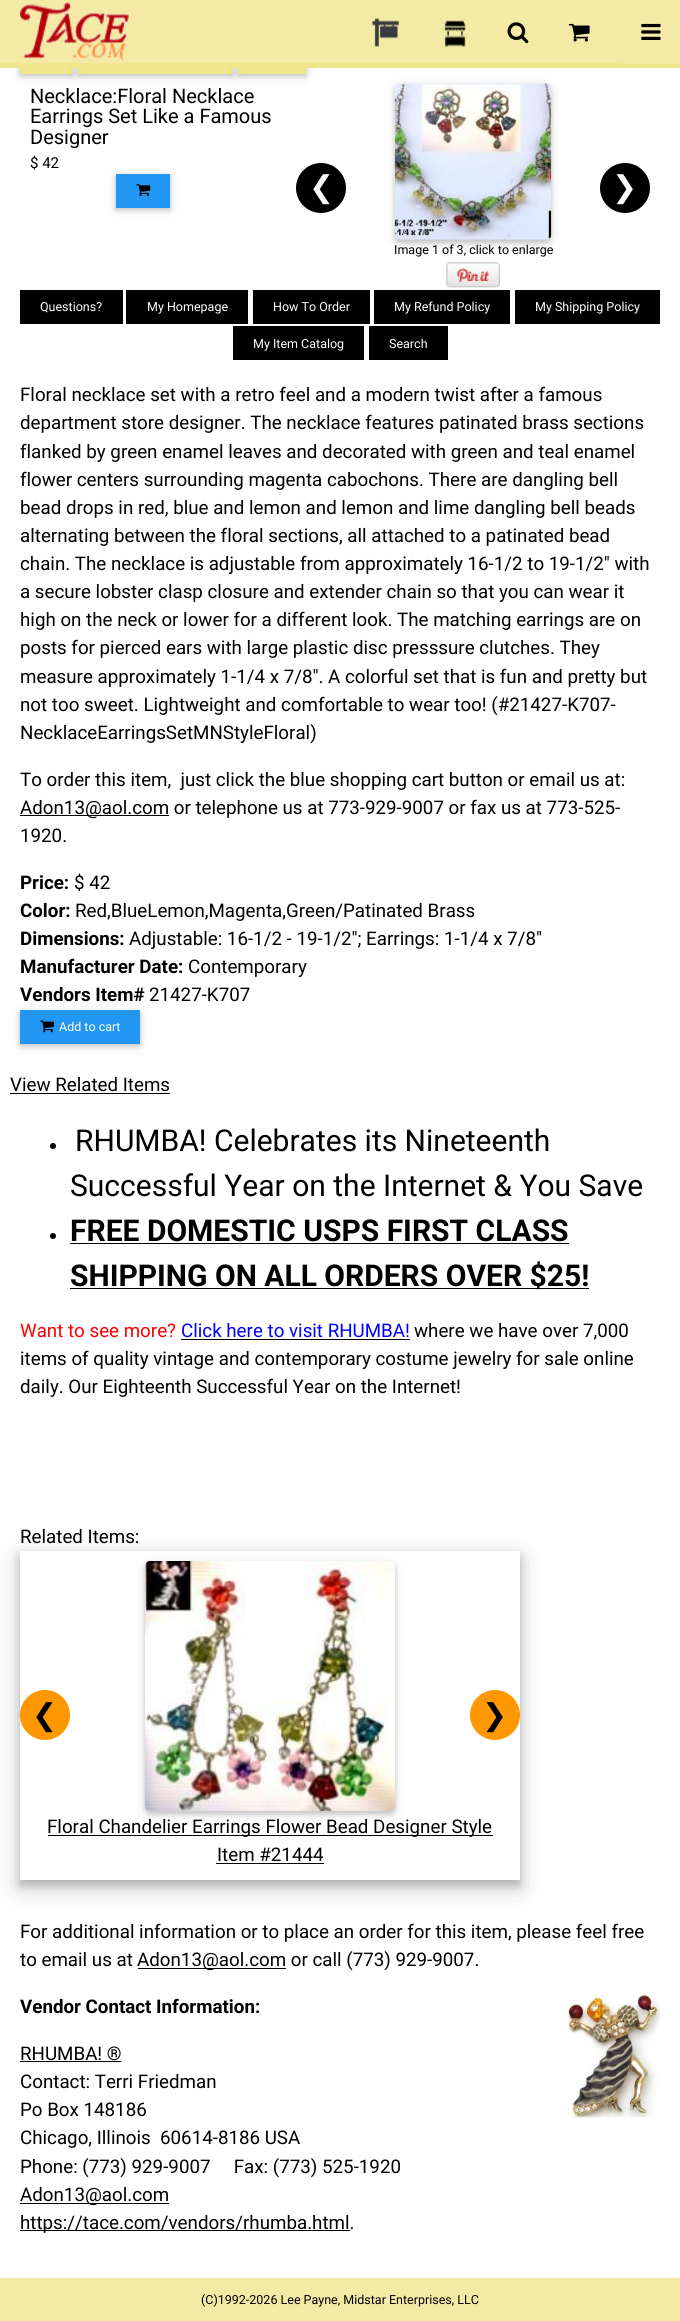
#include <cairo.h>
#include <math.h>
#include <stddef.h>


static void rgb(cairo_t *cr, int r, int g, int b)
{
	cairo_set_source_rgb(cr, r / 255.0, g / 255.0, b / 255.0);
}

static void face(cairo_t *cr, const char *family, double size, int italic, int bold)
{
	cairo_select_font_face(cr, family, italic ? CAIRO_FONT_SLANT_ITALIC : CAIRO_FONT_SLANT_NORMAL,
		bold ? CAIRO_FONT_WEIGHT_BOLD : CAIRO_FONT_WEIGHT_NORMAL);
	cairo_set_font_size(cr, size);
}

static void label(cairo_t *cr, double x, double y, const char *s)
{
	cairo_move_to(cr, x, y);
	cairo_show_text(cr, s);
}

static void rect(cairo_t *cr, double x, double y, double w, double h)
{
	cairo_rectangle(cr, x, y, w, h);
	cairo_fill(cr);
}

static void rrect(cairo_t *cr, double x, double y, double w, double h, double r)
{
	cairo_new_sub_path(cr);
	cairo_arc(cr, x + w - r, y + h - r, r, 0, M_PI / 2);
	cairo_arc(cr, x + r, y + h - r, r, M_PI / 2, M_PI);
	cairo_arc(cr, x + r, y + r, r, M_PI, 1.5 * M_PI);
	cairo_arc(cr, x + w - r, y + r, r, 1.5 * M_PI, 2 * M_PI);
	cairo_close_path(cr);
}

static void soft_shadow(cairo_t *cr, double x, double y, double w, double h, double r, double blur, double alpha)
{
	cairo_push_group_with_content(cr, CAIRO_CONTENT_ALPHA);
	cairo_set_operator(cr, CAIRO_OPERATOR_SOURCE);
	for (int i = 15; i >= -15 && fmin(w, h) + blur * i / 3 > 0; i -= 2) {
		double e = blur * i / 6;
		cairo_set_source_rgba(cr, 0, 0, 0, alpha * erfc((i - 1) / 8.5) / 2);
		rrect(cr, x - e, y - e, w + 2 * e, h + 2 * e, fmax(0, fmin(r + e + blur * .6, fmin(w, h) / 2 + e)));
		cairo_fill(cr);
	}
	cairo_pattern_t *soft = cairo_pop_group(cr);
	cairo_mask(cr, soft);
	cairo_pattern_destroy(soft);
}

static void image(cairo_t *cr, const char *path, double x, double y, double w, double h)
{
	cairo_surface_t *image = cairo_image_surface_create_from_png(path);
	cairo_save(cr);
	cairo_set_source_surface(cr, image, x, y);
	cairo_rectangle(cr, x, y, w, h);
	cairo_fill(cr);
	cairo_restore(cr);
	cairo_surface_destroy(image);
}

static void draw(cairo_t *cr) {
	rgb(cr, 255, 255, 255);
	cairo_paint(cr);
	rgb(cr, 0, 0, 0);
	soft_shadow(cr, 20, 39, 53, 37, 0, 6, 0.12);
	soft_shadow(cr, 20, 39, 53, 37, 0, 2.5, 0.16);
	rgb(cr, 240, 230, 140);
	rect(cr, 20, 68, 53, 6);
	rgb(cr, 0, 0, 0);
	soft_shadow(cr, 78, 39, 155, 37, 0, 6, 0.12);
	soft_shadow(cr, 78, 39, 155, 37, 0, 2.5, 0.16);
	rgb(cr, 240, 230, 140);
	rect(cr, 78, 68, 155, 6);
	rgb(cr, 0, 0, 0);
	soft_shadow(cr, 238, 39, 68, 37, 0, 6, 0.12);
	soft_shadow(cr, 238, 39, 68, 37, 0, 2.5, 0.16);
	soft_shadow(cr, 395, 86, 156, 157, 5, 6, 0.12);
	rgb(cr, 240, 230, 140);
	rect(cr, 0, 63, 680, 5);
	rgb(cr, 243, 235, 165);
	rect(cr, 0, 0, 621, 63);
	image(cr, "image0.png", 20, 2, 109, 59);
	rect(cr, 621, 0, 59, 64);
	image(cr, "image1.png", 641, 23, 20, 17);
	image(cr, "image2.png", 372, 18, 27, 29);
	image(cr, "image3.png", 444, 20, 23, 27);
	image(cr, "image4.png", 507, 22, 22, 22);
	image(cr, "image5.png", 568, 23, 22, 19);
	rgb(cr, 240, 230, 140);
	rect(cr, 238, 68, 68, 6);
	face(cr, "Roboto", 20, 0, 0);
	rgb(cr, 0, 0, 0);
	label(cr, 30, 103, "Necklace:Floral Necklace");
	label(cr, 30, 123, "Earrings Set Like a Famous");
	label(cr, 30, 144, "Designer");
	face(cr, "Roboto", 15, 0, 0);
	label(cr, 30, 168, "$ 42");
	rgb(cr, 0, 0, 0);
	soft_shadow(cr, 116, 176, 54, 34, 0, 6, 0.12);
	soft_shadow(cr, 116, 176, 54, 34, 0, 2.5, 0.16);
	rgb(cr, 33, 150, 243);
	rect(cr, 116, 174, 54, 34);
	image(cr, "image6.png", 136, 184, 15, 13);
	rgb(cr, 0, 0, 0);
	cairo_arc(cr, 321, 188, 25, 0, 2 * M_PI);
	cairo_fill(cr);
	face(cr, "DejaVu Sans", 30, 0, 0);
	rgb(cr, 255, 255, 255);
	label(cr, 309, 197, "❮");
	rgb(cr, 0, 0, 0);
	soft_shadow(cr, 395, 86, 156, 157, 5, 2.5, 0.16);
	image(cr, "image7.png", 395, 83, 157, 157);
	rgb(cr, 0, 0, 0);
	cairo_arc(cr, 625, 188, 25, 0, 2 * M_PI);
	cairo_fill(cr);
	rgb(cr, 255, 255, 255);
	label(cr, 612, 197, "❯");
	face(cr, "Roboto", 12.5, 0, 0);
	rgb(cr, 0, 0, 0);
	label(cr, 394, 254, "Image 1 of 3, click to enlarge");
	image(cr, "image8.png", 446, 262, 54, 26);
	rect(cr, 20, 290, 103, 34);
	rgb(cr, 255, 255, 255);
	label(cr, 40, 311, "Questions?");
	rgb(cr, 0, 0, 0);
	rect(cr, 126, 290, 122, 34);
	rgb(cr, 255, 255, 255);
	label(cr, 147, 311, "My Homepage");
	rgb(cr, 0, 0, 0);
	rect(cr, 253, 290, 117, 34);
	rgb(cr, 255, 255, 255);
	label(cr, 273, 311, "How To Order");
	rgb(cr, 0, 0, 0);
	rect(cr, 374, 290, 136, 34);
	rgb(cr, 255, 255, 255);
	label(cr, 394, 311, "My Refund Policy");
	rgb(cr, 0, 0, 0);
	rect(cr, 515, 290, 145, 34);
	rgb(cr, 255, 255, 255);
	label(cr, 535, 311, "My Shipping Policy");
	rgb(cr, 0, 0, 0);
	rect(cr, 233, 326, 131, 34);
	rgb(cr, 255, 255, 255);
	label(cr, 253, 348, "My Item Catalog");
	rgb(cr, 0, 0, 0);
	rect(cr, 369, 326, 79, 34);
	rgb(cr, 255, 255, 255);
	label(cr, 389, 348, "Search");
	face(cr, "Roboto", 18.75, 0, 0);
	rgb(cr, 0, 0, 0);
	label(cr, 20, 401, "Floral necklace set with a retro feel and a modern twist after a famous");
	label(cr, 20, 429, "department store designer. The necklace features patinated brass sections");
	label(cr, 20, 458, "flanked by green enamel leaves and decorated with green and teal enamel");
	label(cr, 20, 486, "flower centers surrounding magenta cabochons. There are dangling bell");
	label(cr, 20, 514, "bead drops in red, blue and lemon and lemon and lime dangling bell beads");
	label(cr, 20, 542, "alternating between the floral sections, all attached to a patinated bead");
	label(cr, 20, 570, "chain. The necklace is adjustable from approximately 16-1/2 to 19-1/2\" with");
	label(cr, 20, 598, "a secure lobster clasp closure and extender chain so that you can wear it");
	label(cr, 20, 626, "high on the neck or lower for a different look. The matching earrings are on");
	label(cr, 20, 654, "posts for pierced ears with large plastic disc presssure clutches. They");
	label(cr, 20, 683, "measure approximately 1-1/4 x 7/8\". A colorful set that is fun and pretty but");
	label(cr, 20, 711, "not too sweet. Lightweight and comfortable to wear too! (#21427-K707-");
	label(cr, 20, 739, "NecklaceEarringsSetMNStyleFloral)");
	label(cr, 20, 786, "To order this item,  just click the blue shopping cart button or email us at:");
	rect(cr, 20, 815, 149, 1);
	label(cr, 20, 814, "Adon13@aol.com or telephone us at 773-929-9007 or fax us at 773-525-");
	label(cr, 20, 842, "1920.");
	face(cr, "Roboto", 18.75, 0, 1);
	label(cr, 20, 889, "Price:");
	face(cr, "Roboto", 18.75, 0, 0);
	label(cr, 74, 889, "$ 42");
	face(cr, "Roboto", 18.75, 0, 1);
	label(cr, 20, 917, "Color:");
	face(cr, "Roboto", 18.75, 0, 0);
	label(cr, 75, 917, "Red,BlueLemon,Magenta,Green/Patinated Brass");
	face(cr, "Roboto", 18.75, 0, 1);
	label(cr, 20, 945, "Dimensions:");
	face(cr, "Roboto", 18.75, 0, 0);
	label(cr, 129, 945, "Adjustable: 16-1/2 - 19-1/2\"; Earrings: 1-1/4 x 7/8\"");
	face(cr, "Roboto", 18.75, 0, 1);
	label(cr, 20, 973, "Manufacturer Date:");
	face(cr, "Roboto", 18.75, 0, 0);
	label(cr, 188, 973, "Contemporary");
	face(cr, "Roboto", 18.75, 0, 1);
	label(cr, 20, 1001, "Vendors Item#");
	face(cr, "Roboto", 18.75, 0, 0);
	label(cr, 149, 1001, "21427-K707");
	rgb(cr, 0, 0, 0);
	soft_shadow(cr, 20, 1013, 120, 33, 0, 6, 0.12);
	soft_shadow(cr, 20, 1013, 120, 33, 0, 2.5, 0.16);
	rgb(cr, 33, 150, 243);
	rect(cr, 20, 1010, 120, 34);
	image(cr, "image9.png", 40, 1020, 14, 13);
	face(cr, "Roboto", 12.5, 0, 0);
	rgb(cr, 255, 255, 255);
	label(cr, 59, 1031, "Add to cart");
	face(cr, "Roboto", 18.75, 0, 0);
	rgb(cr, 0, 0, 0);
	label(cr, 10, 1091, "View Related Items");
	rect(cr, 10, 1093, 160, 1);
	cairo_new_path(cr);
	cairo_arc(cr, 53, 1146, 3, 0, 2 * M_PI);
	cairo_fill(cr);
	face(cr, "Roboto", 30, 0, 0);
	label(cr, 75, 1151, "RHUMBA! Celebrates its Nineteenth");
	label(cr, 70, 1196, "Successful Year on the Internet & You Save");
	cairo_new_path(cr);
	cairo_arc(cr, 53, 1236, 3, 0, 2 * M_PI);
	cairo_fill(cr);
	face(cr, "Roboto", 30, 0, 1);
	label(cr, 70, 1241, "FREE DOMESTIC USPS FIRST CLASS");
	rect(cr, 70, 1243, 499, 1);
	rect(cr, 70, 1288, 519, 1);
	label(cr, 70, 1286, "SHIPPING ON ALL ORDERS OVER $25!");
	face(cr, "Roboto", 18.75, 0, 0);
	rgb(cr, 255, 0, 0);
	label(cr, 20, 1337, "Want to see more?");
	rgb(cr, 0, 0, 255);
	label(cr, 181, 1337, "Click here to visit RHUMBA!");
	rgb(cr, 0, 0, 0);
	rect(cr, 181, 1339, 229, 1);
	label(cr, 414, 1337, "where we have over 7,000");
	label(cr, 20, 1365, "items of quality vintage and contemporary costume jewelry for sale online");
	label(cr, 20, 1393, "daily. Our Eighteenth Successful Year on the Internet!");
	label(cr, 20, 1543, "Related Items:");
	cairo_save(cr);
	cairo_set_fill_rule(cr, CAIRO_FILL_RULE_EVEN_ODD);
	cairo_new_path(cr);
	cairo_move_to(cr, 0, 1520);
	cairo_line_to(cr, 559, 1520);
	cairo_line_to(cr, 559, 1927);
	cairo_line_to(cr, 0, 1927);
	cairo_close_path(cr);
	cairo_move_to(cr, 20, 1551);
	cairo_line_to(cr, 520, 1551);
	cairo_line_to(cr, 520, 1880);
	cairo_line_to(cr, 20, 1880);
	cairo_close_path(cr);
	cairo_clip(cr);
	rgb(cr, 0, 0, 0);
	soft_shadow(cr, 20, 1559, 500, 329, 0, 12.5, 0.19);
	cairo_restore(cr);
	cairo_save(cr);
	cairo_set_fill_rule(cr, CAIRO_FILL_RULE_EVEN_ODD);
	cairo_new_path(cr);
	cairo_move_to(cr, 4, 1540);
	cairo_line_to(cr, 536, 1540);
	cairo_line_to(cr, 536, 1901);
	cairo_line_to(cr, 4, 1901);
	cairo_close_path(cr);
	cairo_move_to(cr, 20, 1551);
	cairo_line_to(cr, 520, 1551);
	cairo_line_to(cr, 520, 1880);
	cairo_line_to(cr, 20, 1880);
	cairo_close_path(cr);
	cairo_clip(cr);
	rgb(cr, 0, 0, 0);
	soft_shadow(cr, 20, 1556, 500, 329, 0, 5, 0.2);
	cairo_restore(cr);
	rgb(cr, 255, 152, 0);
	cairo_arc(cr, 45, 1715, 25, 0, 2 * M_PI);
	cairo_fill(cr);
	face(cr, "DejaVu Sans", 30, 0, 0);
	rgb(cr, 0, 0, 0);
	label(cr, 32, 1725, "❮");
	rgb(cr, 255, 152, 0);
	cairo_new_path(cr);
	cairo_arc(cr, 495, 1715, 25, 0, 2 * M_PI);
	cairo_fill(cr);
	rgb(cr, 0, 0, 0);
	label(cr, 482, 1725, "❯");
	rgb(cr, 0, 0, 0);
	soft_shadow(cr, 145, 1564, 250, 250, 5, 6, 0.12);
	soft_shadow(cr, 145, 1564, 250, 250, 5, 2.5, 0.16);
	image(cr, "image10.png", 145, 1561, 250, 250);
	rgb(cr, 0, 0, 0);
	rect(cr, 48, 1835, 445, 1);
	face(cr, "Roboto", 18.75, 0, 0);
	label(cr, 47, 1833, "Floral Chandelier Earrings Flower Bead Designer Style");
	label(cr, 217, 1861, "Item #21444");
	rect(cr, 216, 1863, 108, 1);
	label(cr, 20, 1938, "For additional information or to place an order for this item, please feel free");
	label(cr, 20, 1966, "to email us at");
	rect(cr, 138, 1968, 148, 1);
	label(cr, 137, 1966, "Adon13@aol.com or call (773) 929-9007.");
	face(cr, "Roboto", 18.75, 0, 1);
	label(cr, 20, 2013, "Vendor Contact Information:");
	image(cr, "image11.png", 566, 1993, 94, 125);
	face(cr, "Roboto", 18.75, 0, 0);
	label(cr, 20, 2060, "RHUMBA! ®");
	rect(cr, 20, 2061, 101, 1);
	label(cr, 20, 2088, "Contact: Terri Friedman");
	label(cr, 20, 2116, "Po Box 148186");
	label(cr, 20, 2144, "Chicago, Illinois  60614-8186 USA");
	label(cr, 20, 2173, "Phone: (773) 929-9007     Fax: (773) 525-1920");
	rect(cr, 20, 2203, 149, 1);
	label(cr, 20, 2201, "Adon13@aol.com");
	rect(cr, 20, 2230, 330, 1);
	label(cr, 20, 2229, "https://tace.com/vendors/rhumba.html.");
	rgb(cr, 243, 235, 165);
	rect(cr, 0, 2278, 680, 43);
	face(cr, "Roboto", 12.5, 0, 0);
	rgb(cr, 0, 0, 0);
	label(cr, 201, 2304, "(C)1992-2026 Lee Payne, Midstar Enterprises, LLC");
}

int main(void) {
	cairo_surface_t *surface = cairo_image_surface_create(CAIRO_FORMAT_RGB24, 680, 2321);
	cairo_t *cr = cairo_create(surface);
	cairo_font_options_t *options = cairo_font_options_create();
	cairo_font_options_set_hint_metrics(options, CAIRO_HINT_METRICS_OFF);
	cairo_font_options_set_hint_style(options, CAIRO_HINT_STYLE_NONE);
	cairo_set_font_options(cr, options);
	cairo_set_miter_limit(cr, 4);
	draw(cr);
	cairo_surface_write_to_png(surface, "render.png");
	cairo_font_options_destroy(options);
	cairo_destroy(cr);
	cairo_surface_destroy(surface);
	return 0;
}
